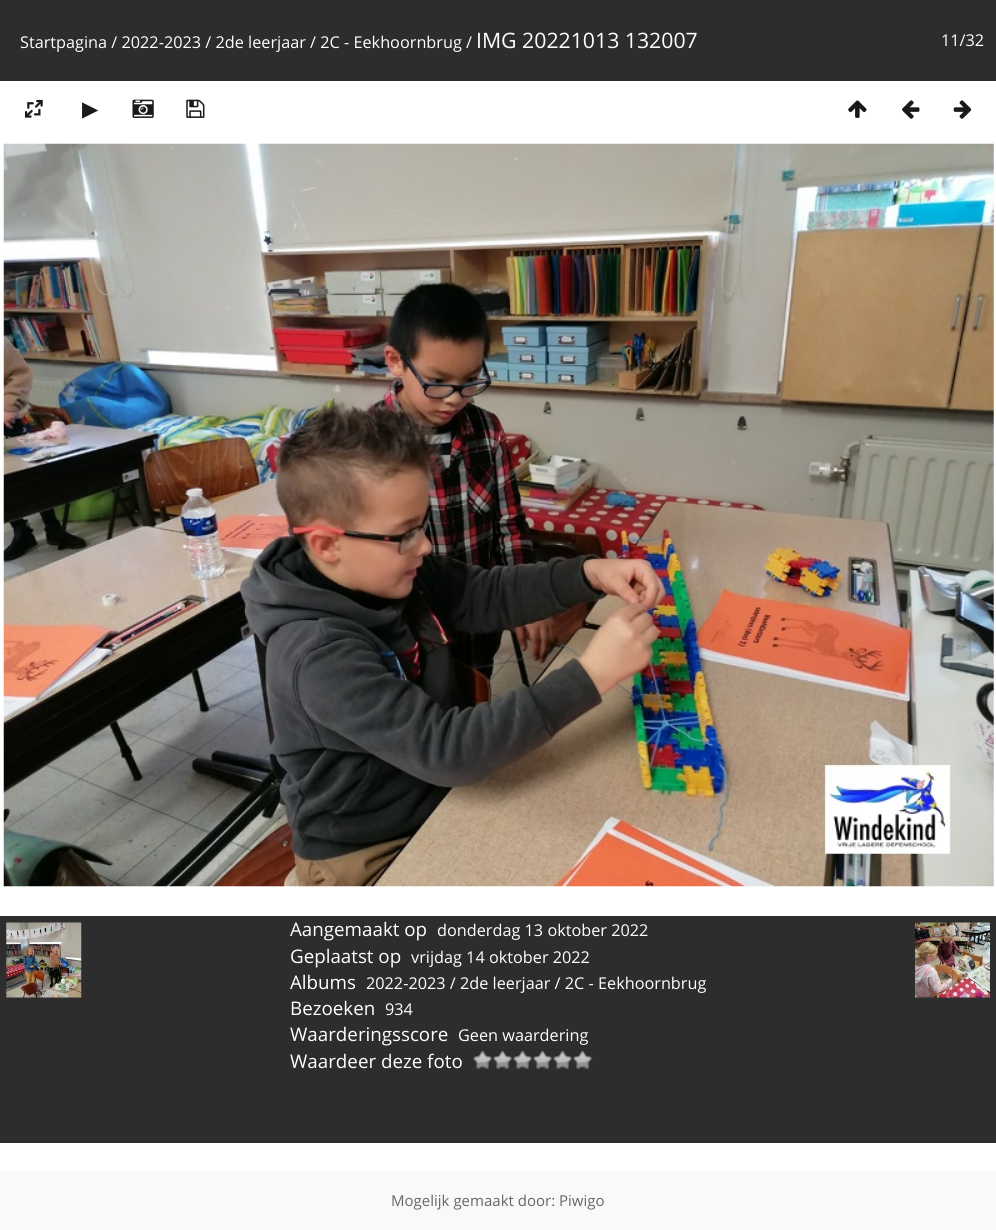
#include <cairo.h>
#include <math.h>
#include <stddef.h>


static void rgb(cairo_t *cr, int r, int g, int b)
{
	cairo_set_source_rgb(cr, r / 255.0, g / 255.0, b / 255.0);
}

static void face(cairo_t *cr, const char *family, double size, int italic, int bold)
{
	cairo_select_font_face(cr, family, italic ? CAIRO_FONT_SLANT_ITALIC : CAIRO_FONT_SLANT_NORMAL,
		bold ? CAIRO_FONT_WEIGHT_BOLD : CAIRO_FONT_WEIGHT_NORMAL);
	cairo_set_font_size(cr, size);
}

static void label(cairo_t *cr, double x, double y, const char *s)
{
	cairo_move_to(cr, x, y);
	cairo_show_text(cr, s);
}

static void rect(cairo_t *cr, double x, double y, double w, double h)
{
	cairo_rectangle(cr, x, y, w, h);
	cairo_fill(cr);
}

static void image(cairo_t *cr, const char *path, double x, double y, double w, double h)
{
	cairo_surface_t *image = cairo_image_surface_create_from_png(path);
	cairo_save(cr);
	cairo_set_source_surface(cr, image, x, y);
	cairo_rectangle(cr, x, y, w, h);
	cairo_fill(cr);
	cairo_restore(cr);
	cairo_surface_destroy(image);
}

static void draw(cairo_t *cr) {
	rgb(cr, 255, 255, 255);
	cairo_paint(cr);
	rgb(cr, 45, 45, 45);
	rect(cr, 0, 0, 996, 81);
	face(cr, "Open Sans", 16.25, 0, 0);
	rgb(cr, 255, 255, 255);
	label(cr, 20, 48, "Startpagina / 2022-2023 / 2de leerjaar / 2C - Eekhoornbrug /");
	face(cr, "Open Sans", 21.25, 0, 0);
	label(cr, 476, 48, "IMG 20221013 132007");
	face(cr, "Open Sans", 16.25, 0, 0);
	label(cr, 941, 46, "11/32");
	image(cr, "image0.png", 25, 99, 18, 19);
	face(cr, "DejaVu Sans", 21.25, 0, 0);
	rgb(cr, 26, 26, 26);
	label(cr, 82, 116, "▶");
	image(cr, "image1.png", 132, 99, 22, 19);
	image(cr, "image2.png", 186, 99, 19, 19);
	image(cr, "image3.png", 848, 100, 19, 18);
	image(cr, "image4.png", 902, 100, 18, 19);
	image(cr, "image5.png", 953, 100, 19, 19);
	image(cr, "image6.png", 3, 143, 991, 744);
	rgb(cr, 45, 45, 45);
	rect(cr, 0, 916, 996, 227);
	face(cr, "Open Sans", 18.75, 0, 0);
	rgb(cr, 255, 255, 255);
	label(cr, 290, 936, "Aangemaakt op");
	face(cr, "Open Sans", 16.25, 0, 0);
	label(cr, 437, 936, "donderdag 13 oktober 2022");
	face(cr, "Open Sans", 18.75, 0, 0);
	label(cr, 290, 963, "Geplaatst op");
	face(cr, "Open Sans", 16.25, 0, 0);
	label(cr, 411, 963, "vrijdag 14 oktober 2022");
	face(cr, "Open Sans", 18.75, 0, 0);
	label(cr, 290, 989, "Albums");
	face(cr, "Open Sans", 16.25, 0, 0);
	label(cr, 366, 989, "2022-2023 / 2de leerjaar / 2C - Eekhoornbrug");
	face(cr, "Open Sans", 18.75, 0, 0);
	label(cr, 290, 1015, "Bezoeken");
	face(cr, "Open Sans", 16.25, 0, 0);
	label(cr, 385, 1015, "934");
	face(cr, "Open Sans", 18.75, 0, 0);
	label(cr, 290, 1041, "Waarderingsscore");
	face(cr, "Open Sans", 16.25, 0, 0);
	label(cr, 458, 1041, "Geen waardering");
	face(cr, "Open Sans", 18.75, 0, 0);
	label(cr, 290, 1068, "Waardeer deze foto");
	image(cr, "image7.png", 472, 1051, 21, 18);
	image(cr, "image8.png", 492, 1051, 21, 18);
	image(cr, "image8.png", 512, 1051, 21, 18);
	image(cr, "image9.png", 532, 1051, 21, 18);
	image(cr, "image9.png", 552, 1051, 21, 18);
	image(cr, "image9.png", 572, 1051, 21, 18);
	image(cr, "image10.png", 6, 922, 76, 76);
	image(cr, "image11.png", 915, 922, 75, 76);
	rgb(cr, 249, 249, 249);
	rect(cr, 0, 1171, 996, 59);
	face(cr, "Open Sans", 15, 0, 0);
	rgb(cr, 102, 102, 102);
	label(cr, 391, 1206, "Mogelijk gemaakt door: Piwigo");
}

int main(void) {
	cairo_surface_t *surface = cairo_image_surface_create(CAIRO_FORMAT_RGB24, 996, 1230);
	cairo_t *cr = cairo_create(surface);
	cairo_font_options_t *options = cairo_font_options_create();
	cairo_font_options_set_hint_metrics(options, CAIRO_HINT_METRICS_OFF);
	cairo_font_options_set_hint_style(options, CAIRO_HINT_STYLE_NONE);
	cairo_set_font_options(cr, options);
	cairo_set_miter_limit(cr, 4);
	draw(cr);
	cairo_surface_write_to_png(surface, "render.png");
	cairo_font_options_destroy(options);
	cairo_destroy(cr);
	cairo_surface_destroy(surface);
	return 0;
}
